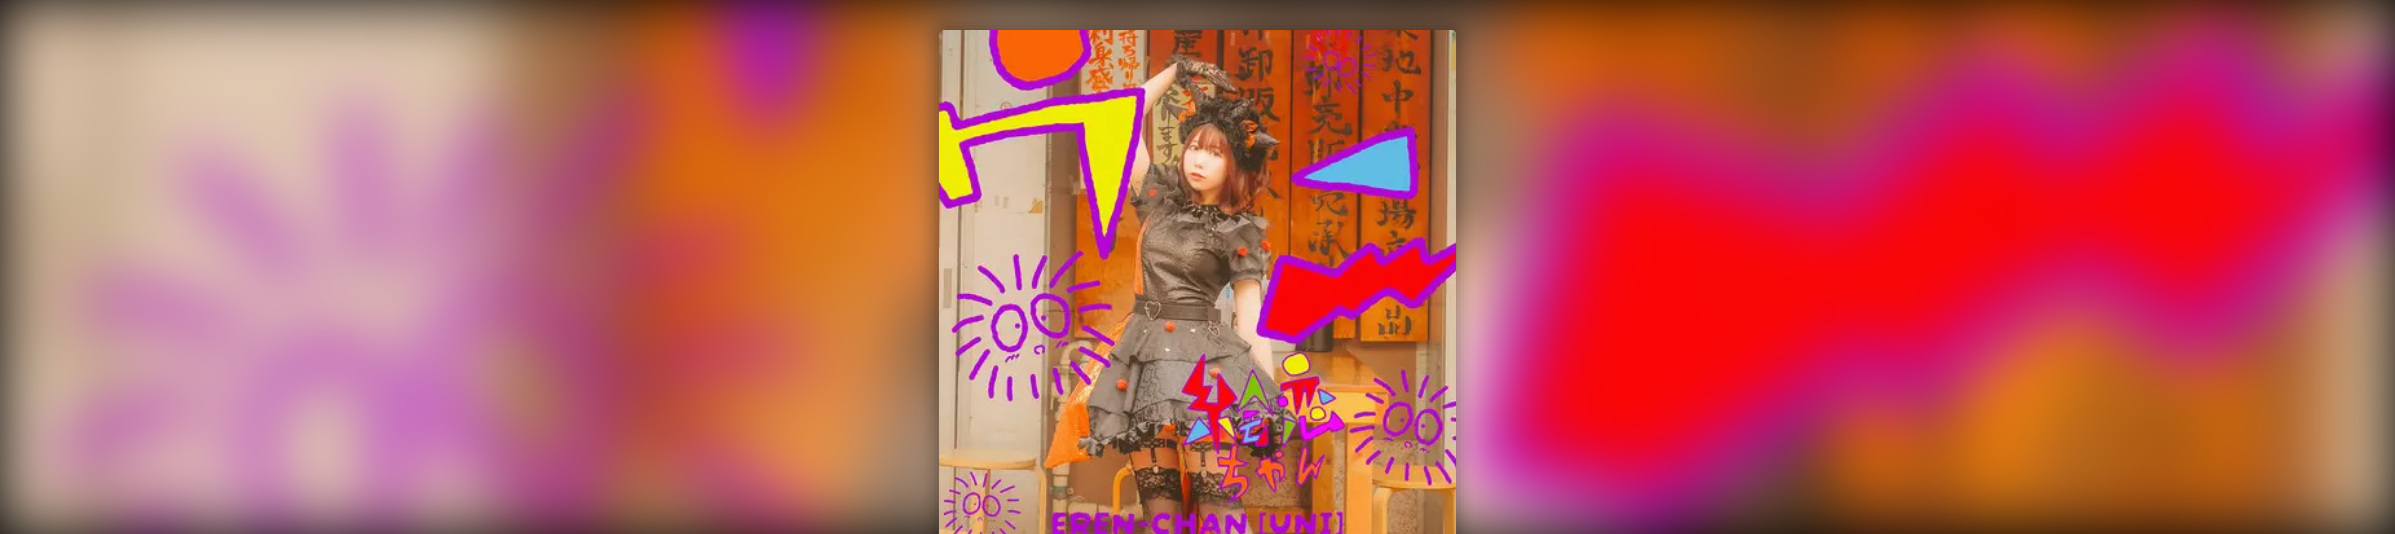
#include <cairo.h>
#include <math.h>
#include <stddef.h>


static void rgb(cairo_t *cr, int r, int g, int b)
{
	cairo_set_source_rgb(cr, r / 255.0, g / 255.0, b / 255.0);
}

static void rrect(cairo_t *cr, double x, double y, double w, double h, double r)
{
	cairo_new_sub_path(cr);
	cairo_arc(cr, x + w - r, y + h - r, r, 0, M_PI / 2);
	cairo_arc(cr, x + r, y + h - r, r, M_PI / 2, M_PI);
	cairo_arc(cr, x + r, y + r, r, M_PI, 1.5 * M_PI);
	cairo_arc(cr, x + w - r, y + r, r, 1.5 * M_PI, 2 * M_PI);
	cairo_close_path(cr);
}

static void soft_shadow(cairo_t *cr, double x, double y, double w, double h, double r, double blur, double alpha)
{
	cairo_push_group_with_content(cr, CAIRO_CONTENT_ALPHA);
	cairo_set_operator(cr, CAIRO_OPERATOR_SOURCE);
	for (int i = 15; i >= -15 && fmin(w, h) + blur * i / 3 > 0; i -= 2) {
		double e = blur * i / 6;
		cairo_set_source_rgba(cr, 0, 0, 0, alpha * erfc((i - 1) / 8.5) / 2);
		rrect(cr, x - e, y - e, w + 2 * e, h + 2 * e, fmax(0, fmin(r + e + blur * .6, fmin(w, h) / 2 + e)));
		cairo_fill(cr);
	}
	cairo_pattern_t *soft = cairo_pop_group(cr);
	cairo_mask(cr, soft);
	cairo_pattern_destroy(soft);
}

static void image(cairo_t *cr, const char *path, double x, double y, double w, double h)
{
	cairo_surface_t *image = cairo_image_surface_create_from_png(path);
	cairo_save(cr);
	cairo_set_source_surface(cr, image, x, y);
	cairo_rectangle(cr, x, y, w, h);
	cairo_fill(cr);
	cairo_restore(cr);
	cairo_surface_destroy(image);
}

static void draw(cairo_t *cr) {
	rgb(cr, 0, 0, 0);
	cairo_paint(cr);
	image(cr, "image0.png", 0, 0, 2395, 534);
	soft_shadow(cr, 939, 30, 517, 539, 5, 10, 0.47);
	image(cr, "image1.png", 938, 30, 519, 504);
}

int main(void) {
	cairo_surface_t *surface = cairo_image_surface_create(CAIRO_FORMAT_RGB24, 2395, 534);
	cairo_t *cr = cairo_create(surface);
	cairo_font_options_t *options = cairo_font_options_create();
	cairo_font_options_set_hint_metrics(options, CAIRO_HINT_METRICS_OFF);
	cairo_font_options_set_hint_style(options, CAIRO_HINT_STYLE_NONE);
	cairo_set_font_options(cr, options);
	cairo_set_miter_limit(cr, 4);
	draw(cr);
	cairo_surface_write_to_png(surface, "render.png");
	cairo_font_options_destroy(options);
	cairo_destroy(cr);
	cairo_surface_destroy(surface);
	return 0;
}
